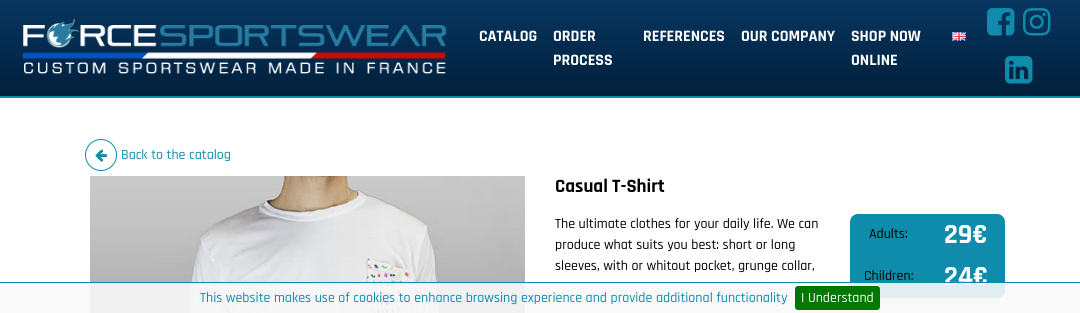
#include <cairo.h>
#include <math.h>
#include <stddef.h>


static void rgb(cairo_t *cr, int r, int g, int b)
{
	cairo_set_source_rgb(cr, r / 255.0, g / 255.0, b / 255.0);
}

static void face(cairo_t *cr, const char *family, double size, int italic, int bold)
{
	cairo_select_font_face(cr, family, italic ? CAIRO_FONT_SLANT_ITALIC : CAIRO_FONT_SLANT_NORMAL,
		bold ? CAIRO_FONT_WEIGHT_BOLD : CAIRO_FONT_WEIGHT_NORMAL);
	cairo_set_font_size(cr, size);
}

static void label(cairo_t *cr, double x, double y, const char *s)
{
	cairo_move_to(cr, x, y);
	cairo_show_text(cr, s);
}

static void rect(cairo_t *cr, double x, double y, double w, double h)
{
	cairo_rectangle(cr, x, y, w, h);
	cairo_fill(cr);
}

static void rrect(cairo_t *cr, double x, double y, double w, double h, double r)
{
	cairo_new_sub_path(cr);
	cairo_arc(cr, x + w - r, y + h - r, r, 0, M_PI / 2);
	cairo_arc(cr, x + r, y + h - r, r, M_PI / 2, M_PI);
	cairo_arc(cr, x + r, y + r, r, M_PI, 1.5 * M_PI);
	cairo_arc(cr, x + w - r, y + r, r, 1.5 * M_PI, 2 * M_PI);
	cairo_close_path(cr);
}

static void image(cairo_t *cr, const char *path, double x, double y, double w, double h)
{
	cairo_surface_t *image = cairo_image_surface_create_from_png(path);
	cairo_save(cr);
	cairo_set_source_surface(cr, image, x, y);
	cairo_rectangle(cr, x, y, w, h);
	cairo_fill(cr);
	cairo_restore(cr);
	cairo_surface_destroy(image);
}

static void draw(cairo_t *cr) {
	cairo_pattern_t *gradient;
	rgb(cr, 255, 255, 255);
	cairo_paint(cr);
	rgb(cr, 15, 139, 172);
	rect(cr, 0, 96, 1080, 2);
	gradient = cairo_pattern_create_linear(540, 0, 540, 96);
	cairo_pattern_add_color_stop_rgba(gradient, 0, 0.031, 0.212, 0.376, 1);
	cairo_pattern_add_color_stop_rgba(gradient, 1, 0, 0.122, 0.235, 1);
	cairo_set_source(cr, gradient);
	cairo_pattern_destroy(gradient);
	rect(cr, 0, 0, 1080, 96);
	image(cr, "image0.png", 22, 18, 425, 56);
	face(cr, "Rajdhani", 16, 0, 1);
	rgb(cr, 255, 255, 255);
	label(cr, 479, 41, "CATALOG");
	label(cr, 553, 41, "ORDER");
	label(cr, 553, 65, "PROCESS");
	label(cr, 643, 41, "REFERENCES");
	label(cr, 741, 41, "OUR COMPANY");
	label(cr, 851, 41, "SHOP NOW");
	label(cr, 851, 65, "ONLINE");
	image(cr, "image1.png", 952, 32, 14, 9);
	image(cr, "image2.png", 987, 8, 28, 28);
	image(cr, "image3.png", 1023, 8, 28, 28);
	image(cr, "image4.png", 1005, 56, 28, 28);
	cairo_arc(cr, 101, 155, 15.5, 0, 2 * M_PI);
	rgb(cr, 15, 139, 172);
	cairo_set_line_width(cr, 1);
	cairo_stroke(cr);
	image(cr, "image5.png", 95, 149, 12, 13);
	face(cr, "Rajdhani Medium", 14, 0, 0);
	label(cr, 121, 159, "Back to the catalog");
	image(cr, "image6.png", 90, 176, 435, 137);
	face(cr, "Rajdhani", 19, 0, 1);
	rgb(cr, 0, 0, 0);
	label(cr, 555, 192, "Casual T-Shirt");
	face(cr, "Rajdhani Medium", 14, 0, 0);
	label(cr, 555, 228, "The ultimate clothes for your daily life. We can");
	label(cr, 555, 249, "produce what suits you best: short or long");
	label(cr, 555, 270, "sleeves, with or whitout pocket, grunge collar,");
	rgb(cr, 15, 139, 172);
	rrect(cr, 850, 214, 155, 84, 8);
	cairo_fill(cr);
	rgb(cr, 0, 0, 0);
	label(cr, 869, 238, "Adults:");
	face(cr, "Rajdhani", 28, 0, 1);
	rgb(cr, 255, 255, 255);
	label(cr, 944, 243, "29€");
	face(cr, "Rajdhani Medium", 14, 0, 0);
	rgb(cr, 0, 0, 0);
	label(cr, 864, 280, "Children:");
	face(cr, "Rajdhani", 28, 0, 1);
	rgb(cr, 255, 255, 255);
	label(cr, 944, 285, "24€");
	cairo_set_source_rgba(cr, 0.976, 0.976, 0.976, 0.9);
	rect(cr, 0, 283, 1080, 30);
	rgb(cr, 15, 139, 172);
	rect(cr, 0, 282, 1080, 1);
	face(cr, "Rajdhani Medium", 14, 0, 0);
	label(cr, 200, 302, "This website makes use of cookies to enhance browsing experience and provide additional functionality");
	rgb(cr, 0, 119, 0);
	rrect(cr, 795, 286, 85, 24, 3);
	cairo_fill(cr);
	rgb(cr, 255, 255, 255);
	label(cr, 801, 302, "I Understand");
}

int main(void) {
	cairo_surface_t *surface = cairo_image_surface_create(CAIRO_FORMAT_RGB24, 1080, 313);
	cairo_t *cr = cairo_create(surface);
	cairo_font_options_t *options = cairo_font_options_create();
	cairo_font_options_set_hint_metrics(options, CAIRO_HINT_METRICS_OFF);
	cairo_font_options_set_hint_style(options, CAIRO_HINT_STYLE_NONE);
	cairo_set_font_options(cr, options);
	cairo_set_miter_limit(cr, 4);
	draw(cr);
	cairo_surface_write_to_png(surface, "render.png");
	cairo_font_options_destroy(options);
	cairo_destroy(cr);
	cairo_surface_destroy(surface);
	return 0;
}
